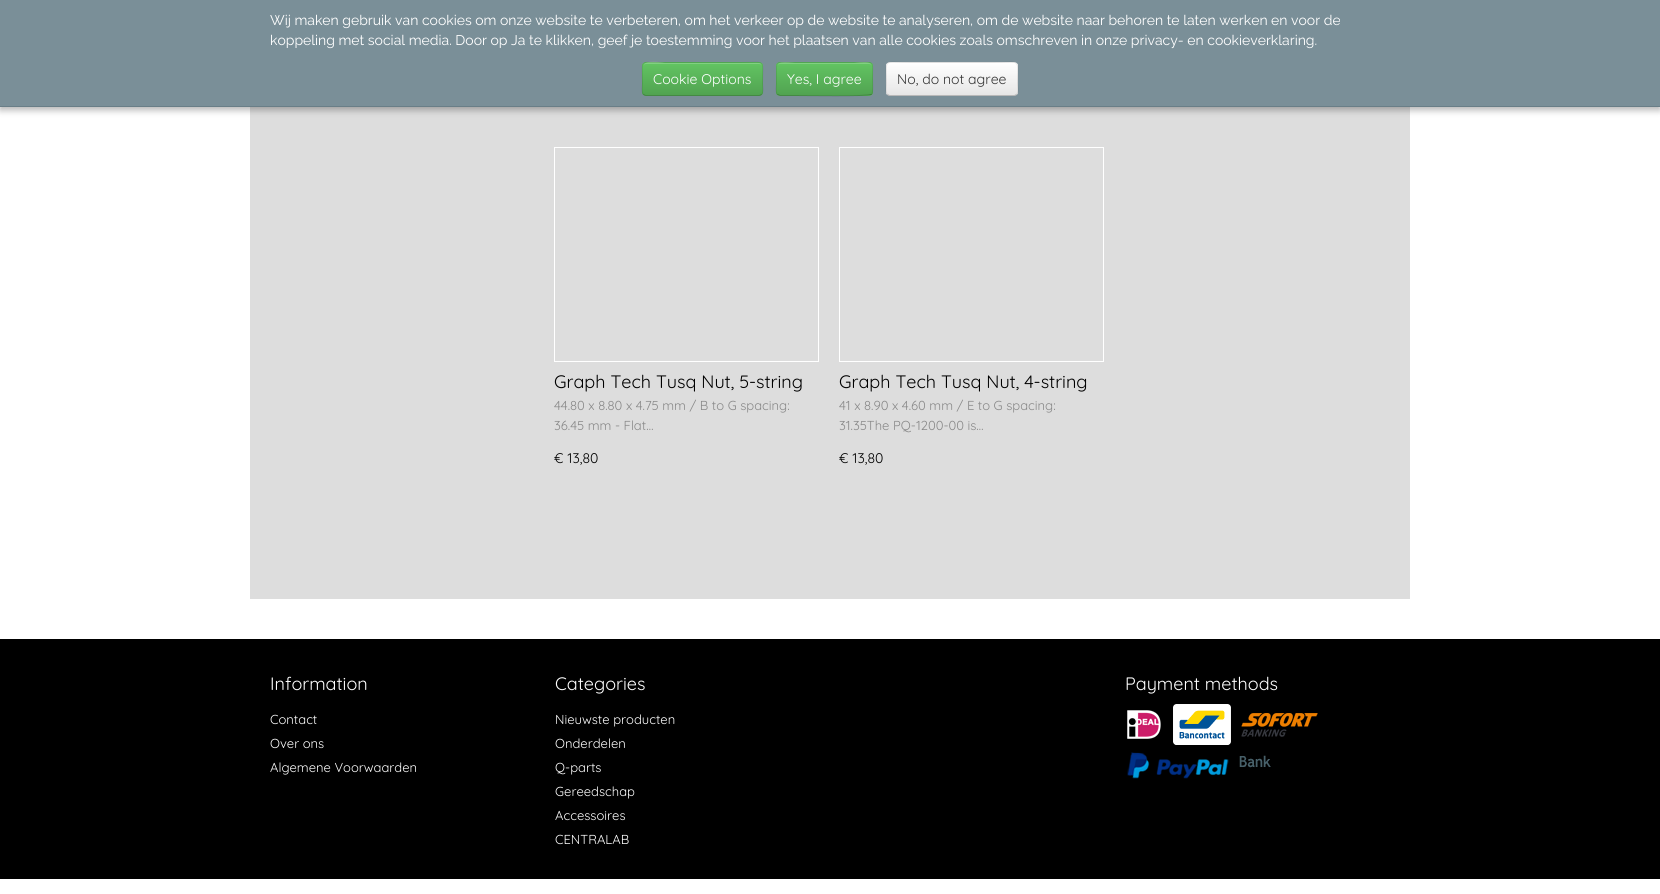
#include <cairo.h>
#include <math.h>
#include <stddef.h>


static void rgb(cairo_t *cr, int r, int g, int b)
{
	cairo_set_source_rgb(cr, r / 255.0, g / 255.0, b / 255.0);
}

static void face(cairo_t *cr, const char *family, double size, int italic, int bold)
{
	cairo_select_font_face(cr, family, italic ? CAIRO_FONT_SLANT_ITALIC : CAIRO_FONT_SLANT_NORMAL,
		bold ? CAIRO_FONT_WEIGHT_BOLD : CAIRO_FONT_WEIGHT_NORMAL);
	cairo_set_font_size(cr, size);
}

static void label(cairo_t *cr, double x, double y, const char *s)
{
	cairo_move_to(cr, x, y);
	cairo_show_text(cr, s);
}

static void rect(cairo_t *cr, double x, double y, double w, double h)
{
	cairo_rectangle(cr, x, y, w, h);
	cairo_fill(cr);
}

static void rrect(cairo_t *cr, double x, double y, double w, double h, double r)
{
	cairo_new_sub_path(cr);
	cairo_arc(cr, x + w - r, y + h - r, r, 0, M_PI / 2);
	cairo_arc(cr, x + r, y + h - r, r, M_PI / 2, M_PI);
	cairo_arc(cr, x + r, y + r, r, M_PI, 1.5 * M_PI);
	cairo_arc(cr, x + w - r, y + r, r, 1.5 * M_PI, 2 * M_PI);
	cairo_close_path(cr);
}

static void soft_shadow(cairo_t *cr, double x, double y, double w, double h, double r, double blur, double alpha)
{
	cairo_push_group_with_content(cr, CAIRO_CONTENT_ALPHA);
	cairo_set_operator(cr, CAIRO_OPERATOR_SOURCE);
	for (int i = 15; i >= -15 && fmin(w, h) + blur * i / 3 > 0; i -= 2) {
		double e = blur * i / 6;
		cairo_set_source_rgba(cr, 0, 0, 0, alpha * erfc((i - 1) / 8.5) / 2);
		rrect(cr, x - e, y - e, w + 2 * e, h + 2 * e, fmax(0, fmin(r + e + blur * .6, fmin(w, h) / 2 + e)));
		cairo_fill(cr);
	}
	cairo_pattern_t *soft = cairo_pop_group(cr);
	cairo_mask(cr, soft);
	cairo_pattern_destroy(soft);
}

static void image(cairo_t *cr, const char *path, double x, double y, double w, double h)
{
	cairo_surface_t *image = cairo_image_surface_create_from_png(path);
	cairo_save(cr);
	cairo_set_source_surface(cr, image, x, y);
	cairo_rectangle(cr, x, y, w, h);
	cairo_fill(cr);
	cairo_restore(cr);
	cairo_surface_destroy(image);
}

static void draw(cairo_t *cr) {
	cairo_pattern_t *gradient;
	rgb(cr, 255, 255, 255);
	cairo_paint(cr);
	rgb(cr, 221, 221, 221);
	rect(cr, 250, 107, 1160, 492);
	rgb(cr, 0, 0, 0);
	soft_shadow(cr, 0, 3, 1660, 107, 0, 3.5, 0.3);
	rgb(cr, 122, 143, 152);
	rect(cr, 0, 0, 1660, 106);
	rgb(cr, 105, 126, 135);
	rect(cr, 0, 106, 1660, 1);
	face(cr, "Raleway", 14, 0, 0);
	rgb(cr, 255, 255, 255);
	label(cr, 270, 25, "Wij maken gebruik van cookies om onze website te verbeteren, om het verkeer op de website te analyseren, om de website naar behoren te laten werken en voor de");
	label(cr, 270, 45, "koppeling met social media. Door op Ja te klikken, geef je toestemming voor het plaatsen van alle cookies zoals omschreven in onze privacy- en cookieverklaring.");
	rgb(cr, 91, 183, 91);
	rrect(cr, 642, 62, 121, 34, 4);
	cairo_fill(cr);
	cairo_save(cr);
	rrect(cr, 642, 62, 121, 34, 4);
	cairo_clip(cr);
	gradient = cairo_pattern_create_linear(703, 63, 703, 95);
	cairo_pattern_add_color_stop_rgba(gradient, 0, 0.384, 0.769, 0.384, 1);
	cairo_pattern_add_color_stop_rgba(gradient, 1, 0.318, 0.639, 0.318, 1);
	cairo_set_source(cr, gradient);
	cairo_pattern_destroy(gradient);
	rect(cr, 642, 63, 121, 32);
	cairo_restore(cr);
	cairo_set_source_rgba(cr, 1, 1, 1, 0.2);
	cairo_new_path(cr);
	cairo_move_to(cr, 646, 64);
	cairo_line_to(cr, 759, 64);
	cairo_curve_to(cr, 761, 64, 762, 65, 762, 67);
	cairo_curve_to(cr, 762, 65, 761, 63, 759, 63);
	cairo_line_to(cr, 665, 63);
	cairo_curve_to(cr, 664, 63, 643, 58, 643, 67);
	cairo_curve_to(cr, 643, 65, 644, 64, 646, 64);
	cairo_close_path(cr);
	cairo_fill(cr);
	cairo_new_path(cr);
	cairo_move_to(cr, 761.5, 94.5);
	cairo_curve_to(cr, 761, 95, 760, 95.5, 759, 95.5);
	cairo_line_to(cr, 646, 95.5);
	cairo_curve_to(cr, 645, 95.5, 644, 95, 643.5, 94.5);
	cairo_set_source_rgba(cr, 0, 0, 0, 0.25);
	cairo_set_line_width(cr, 1);
	cairo_stroke(cr);
	cairo_new_path(cr);
	cairo_move_to(cr, 643.5, 94.5);
	cairo_curve_to(cr, 641, 92, 642.5, 86, 642.5, 83.5);
	cairo_curve_to(cr, 642.5, 58, 638, 62.5, 665, 62.5);
	cairo_line_to(cr, 740, 62.5);
	cairo_curve_to(cr, 767, 62.5, 762.5, 58, 762.5, 83.5);
	cairo_curve_to(cr, 762.5, 86, 764, 92, 761.5, 94.5);
	cairo_set_source_rgba(cr, 0, 0, 0, 0.1);
	cairo_stroke(cr);
	face(cr, "Quicksand", 14, 0, 0);
	rgb(cr, 255, 255, 255);
	label(cr, 653, 84, "Cookie Options");
	rgb(cr, 91, 183, 91);
	rrect(cr, 776, 62, 97, 34, 4);
	cairo_fill(cr);
	cairo_save(cr);
	rrect(cr, 776, 62, 97, 34, 4);
	cairo_clip(cr);
	gradient = cairo_pattern_create_linear(825, 63, 825, 95);
	cairo_pattern_add_color_stop_rgba(gradient, 0, 0.384, 0.769, 0.384, 1);
	cairo_pattern_add_color_stop_rgba(gradient, 1, 0.318, 0.639, 0.318, 1);
	cairo_set_source(cr, gradient);
	cairo_pattern_destroy(gradient);
	rect(cr, 776, 63, 97, 32);
	cairo_restore(cr);
	cairo_set_source_rgba(cr, 1, 1, 1, 0.2);
	cairo_new_path(cr);
	cairo_move_to(cr, 780, 64);
	cairo_line_to(cr, 869, 64);
	cairo_curve_to(cr, 871, 64, 872, 65, 872, 67);
	cairo_curve_to(cr, 872, 59, 857, 63, 854, 63);
	cairo_line_to(cr, 795, 63);
	cairo_curve_to(cr, 792, 63, 777, 59, 777, 67);
	cairo_curve_to(cr, 777, 65, 778, 64, 780, 64);
	cairo_close_path(cr);
	cairo_fill(cr);
	cairo_new_path(cr);
	cairo_move_to(cr, 871.5, 94.5);
	cairo_line_to(cr, 871, 94.5);
	cairo_curve_to(cr, 869, 96.5, 803.5, 95.5, 795, 95.5);
	cairo_line_to(cr, 780, 95.5);
	cairo_line_to(cr, 777.5, 94.5);
	cairo_set_source_rgba(cr, 0, 0, 0, 0.25);
	cairo_stroke(cr);
	cairo_new_path(cr);
	cairo_move_to(cr, 777.5, 94.5);
	cairo_curve_to(cr, 775, 92, 776.5, 86, 776.5, 83.5);
	cairo_line_to(cr, 776.5, 70.5);
	cairo_curve_to(cr, 776.5, 67.5, 776, 62.5, 780, 62.5);
	cairo_line_to(cr, 854, 62.5);
	cairo_curve_to(cr, 875.5, 62.5, 872.5, 59, 872.5, 79);
	cairo_curve_to(cr, 872.5, 82, 873.5, 92, 871.5, 94.5);
	cairo_set_source_rgba(cr, 0, 0, 0, 0.1);
	cairo_stroke(cr);
	rgb(cr, 255, 255, 255);
	label(cr, 787, 84, "Yes, I agree");
	rgb(cr, 245, 245, 245);
	rrect(cr, 886, 62, 132, 34, 4);
	cairo_fill(cr);
	cairo_save(cr);
	rrect(cr, 886, 62, 132, 34, 4);
	cairo_clip(cr);
	gradient = cairo_pattern_create_linear(952, 63, 952, 95);
	cairo_pattern_add_color_stop_rgba(gradient, 0, 1, 1, 1, 1);
	cairo_pattern_add_color_stop_rgba(gradient, 1, 0.902, 0.902, 0.902, 1);
	cairo_set_source(cr, gradient);
	cairo_pattern_destroy(gradient);
	rect(cr, 886, 63, 132, 32);
	cairo_restore(cr);
	cairo_new_path(cr);
	cairo_move_to(cr, 1016.5, 94.5);
	cairo_curve_to(cr, 1016, 95, 1015, 95.5, 1014, 95.5);
	cairo_line_to(cr, 890, 95.5);
	cairo_curve_to(cr, 889, 95.5, 888, 95, 887.5, 94.5);
	cairo_set_source_rgba(cr, 0, 0, 0, 0.25);
	cairo_stroke(cr);
	cairo_new_path(cr);
	cairo_move_to(cr, 887.5, 94.5);
	cairo_curve_to(cr, 885, 92, 886.5, 86, 886.5, 83.5);
	cairo_curve_to(cr, 886.5, 57.5, 882, 62.5, 910.5, 62.5);
	cairo_line_to(cr, 993.5, 62.5);
	cairo_curve_to(cr, 1022, 62.5, 1017.5, 57.5, 1017.5, 83.5);
	cairo_curve_to(cr, 1017.5, 86, 1019, 92, 1016.5, 94.5);
	cairo_set_source_rgba(cr, 0, 0, 0, 0.1);
	cairo_stroke(cr);
	rgb(cr, 51, 51, 51);
	label(cr, 897, 84, "No, do not agree");
	cairo_rectangle(cr, 554.5, 147.5, 264, 214);
	rgb(cr, 255, 255, 255);
	cairo_stroke(cr);
	face(cr, "Quicksand", 18, 0, 0);
	rgb(cr, 0, 0, 0);
	label(cr, 554, 388, "Graph Tech Tusq Nut, 5-string");
	face(cr, "Quicksand", 13, 0, 0);
	rgb(cr, 136, 136, 136);
	label(cr, 554, 410, "44.80 x 8.80 x 4.75 mm / B to G spacing:");
	label(cr, 554, 430, "36.45 mm - Flat…");
	face(cr, "Quicksand", 14, 0, 0);
	rgb(cr, 0, 0, 0);
	label(cr, 554, 463, "€ 13,80");
	cairo_rectangle(cr, 839.5, 147.5, 264, 214);
	rgb(cr, 255, 255, 255);
	cairo_stroke(cr);
	face(cr, "Quicksand", 18, 0, 0);
	rgb(cr, 0, 0, 0);
	label(cr, 839, 388, "Graph Tech Tusq Nut, 4-string");
	face(cr, "Quicksand", 13, 0, 0);
	rgb(cr, 136, 136, 136);
	label(cr, 839, 410, "41 x 8.90 x 4.60 mm / E to G spacing:");
	label(cr, 839, 430, "31.35The PQ-1200-00 is…");
	face(cr, "Quicksand", 14, 0, 0);
	rgb(cr, 0, 0, 0);
	label(cr, 839, 463, "€ 13,80");
	rect(cr, 0, 639, 1660, 240);
	face(cr, "Quicksand", 18, 0, 0);
	rgb(cr, 255, 255, 255);
	label(cr, 270, 690, "Information");
	face(cr, "Quicksand", 13, 0, 0);
	label(cr, 270, 724, "Contact");
	label(cr, 270, 748, "Over ons");
	label(cr, 270, 772, "Algemene Voorwaarden");
	face(cr, "Quicksand", 18, 0, 0);
	label(cr, 555, 690, "Categories");
	face(cr, "Quicksand", 13, 0, 0);
	label(cr, 555, 724, "Nieuwste producten");
	label(cr, 555, 748, "Onderdelen");
	label(cr, 555, 772, "Q-parts");
	label(cr, 555, 796, "Gereedschap");
	label(cr, 555, 820, "Accessoires");
	label(cr, 555, 844, "CENTRALAB");
	face(cr, "Quicksand", 18, 0, 0);
	label(cr, 1125, 690, "Payment methods");
	image(cr, "image0.png", 1127, 710, 34, 29);
	image(cr, "image1.png", 1173, 704, 58, 41);
	image(cr, "image2.png", 1241, 713, 77, 24);
	image(cr, "image3.png", 1127, 752, 102, 27);
	image(cr, "image4.png", 1239, 755, 32, 13);
}

int main(void) {
	cairo_surface_t *surface = cairo_image_surface_create(CAIRO_FORMAT_RGB24, 1660, 894);
	cairo_t *cr = cairo_create(surface);
	cairo_font_options_t *options = cairo_font_options_create();
	cairo_font_options_set_hint_metrics(options, CAIRO_HINT_METRICS_OFF);
	cairo_font_options_set_hint_style(options, CAIRO_HINT_STYLE_NONE);
	cairo_set_font_options(cr, options);
	cairo_set_miter_limit(cr, 4);
	draw(cr);
	cairo_surface_write_to_png(surface, "render.png");
	cairo_font_options_destroy(options);
	cairo_destroy(cr);
	cairo_surface_destroy(surface);
	return 0;
}
